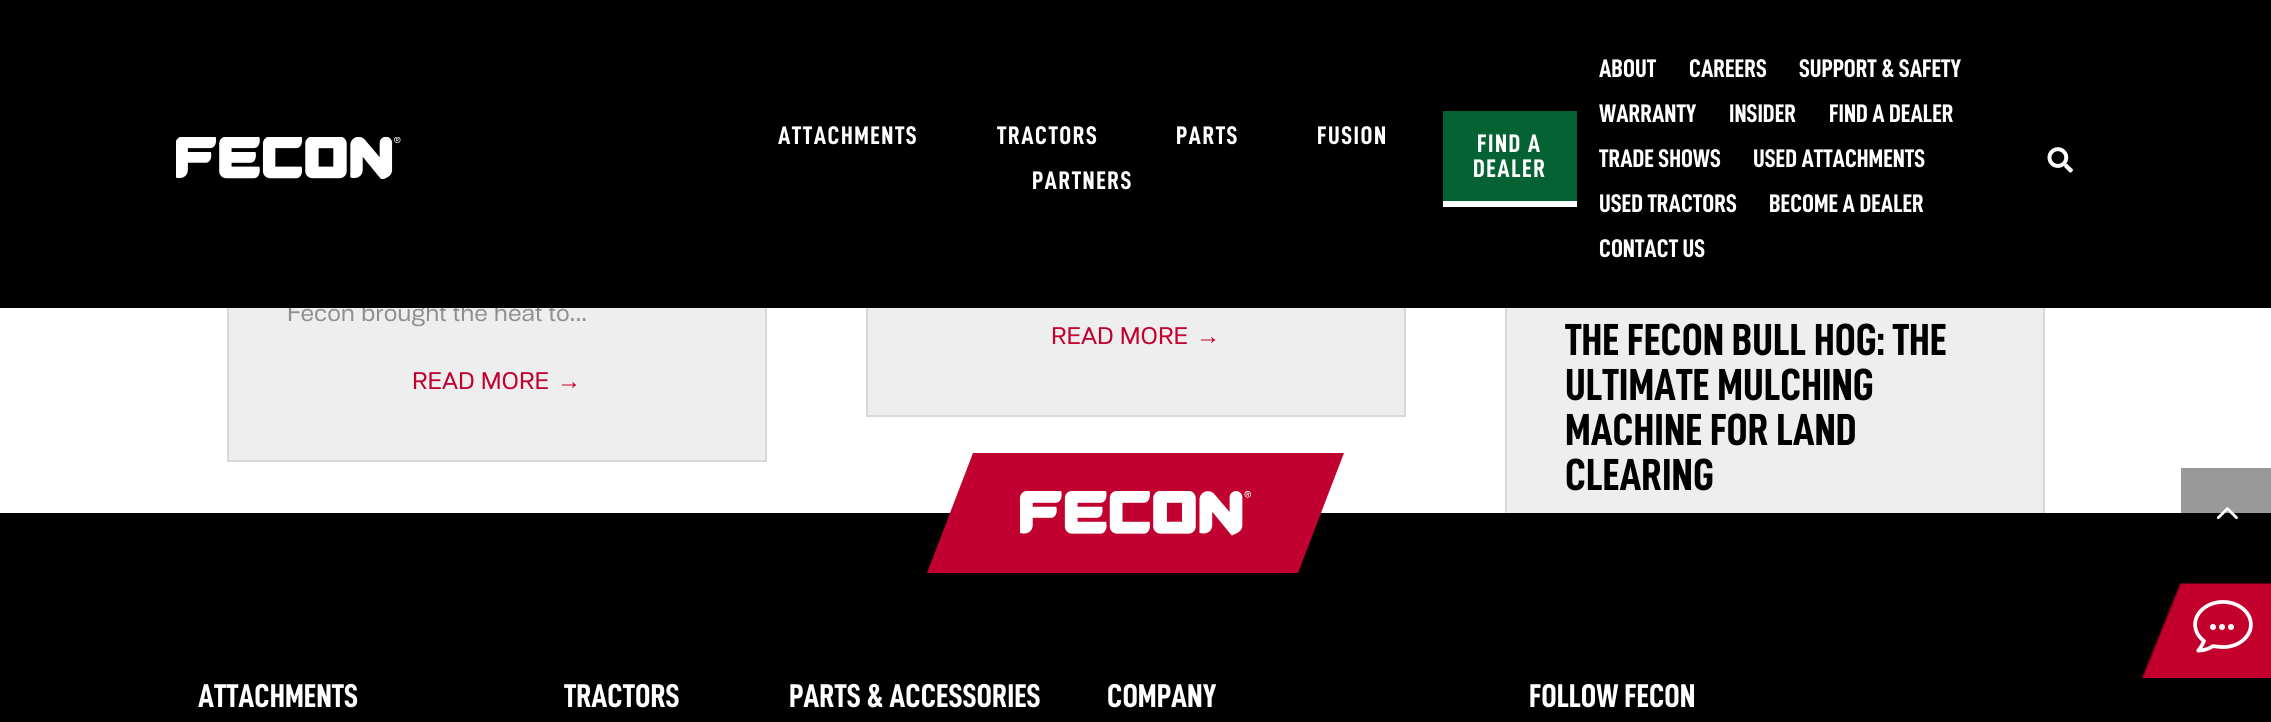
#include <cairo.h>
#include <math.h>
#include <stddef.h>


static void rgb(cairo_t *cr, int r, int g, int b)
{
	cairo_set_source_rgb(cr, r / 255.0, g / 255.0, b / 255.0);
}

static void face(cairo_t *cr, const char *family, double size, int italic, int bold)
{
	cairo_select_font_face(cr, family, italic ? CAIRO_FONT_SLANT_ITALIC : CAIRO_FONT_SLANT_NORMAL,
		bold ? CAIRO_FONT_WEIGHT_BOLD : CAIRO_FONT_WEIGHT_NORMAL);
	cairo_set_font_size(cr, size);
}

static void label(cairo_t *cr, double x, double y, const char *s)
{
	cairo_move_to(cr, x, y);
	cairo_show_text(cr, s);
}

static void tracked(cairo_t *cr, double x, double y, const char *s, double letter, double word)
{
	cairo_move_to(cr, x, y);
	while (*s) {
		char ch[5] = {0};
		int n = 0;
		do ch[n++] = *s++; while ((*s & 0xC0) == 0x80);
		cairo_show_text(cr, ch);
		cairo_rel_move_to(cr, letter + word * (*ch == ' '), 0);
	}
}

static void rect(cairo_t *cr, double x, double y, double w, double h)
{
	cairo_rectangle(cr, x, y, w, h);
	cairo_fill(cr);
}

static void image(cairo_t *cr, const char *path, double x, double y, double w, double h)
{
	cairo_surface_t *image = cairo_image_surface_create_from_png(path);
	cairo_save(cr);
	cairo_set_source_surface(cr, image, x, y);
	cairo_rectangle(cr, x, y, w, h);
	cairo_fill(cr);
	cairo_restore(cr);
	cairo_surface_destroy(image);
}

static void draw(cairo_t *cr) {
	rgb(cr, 255, 255, 255);
	cairo_paint(cr);
	rgb(cr, 238, 238, 238);
	rect(cr, 229, 308, 536, 152);
	cairo_rectangle(cr, 228, -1, 538, 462);
	rgb(cr, 216, 216, 216);
	cairo_stroke(cr);
	face(cr, "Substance", 24, 0, 0);
	rgb(cr, 142, 142, 142);
	label(cr, 287, 321, "Fecon brought the heat to...");
	rgb(cr, 238, 238, 238);
	rect(cr, 868, 308, 536, 107);
	cairo_rectangle(cr, 867, -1, 538, 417);
	rgb(cr, 216, 216, 216);
	cairo_stroke(cr);
	rgb(cr, 238, 238, 238);
	rect(cr, 1507, 308, 536, 205);
	cairo_rectangle(cr, 1506, 166, 538, 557);
	rgb(cr, 216, 216, 216);
	cairo_stroke(cr);
	rgb(cr, 0, 0, 0);
	rect(cr, 0, 0, 2271, 308);
	image(cr, "image0.png", 176, 137, 225, 42);
	face(cr, "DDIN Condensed", 25.5, 0, 1);
	rgb(cr, 255, 255, 255);
	tracked(cr, 778, 144, "ATTACHMENTS", 1.5, 0);
	tracked(cr, 997, 144, "TRACTORS", 1.5, 0);
	tracked(cr, 1176, 144, "PARTS", 1.5, 0);
	tracked(cr, 1317, 144, "FUSION", 1.5, 0);
	tracked(cr, 1032, 189, "PARTNERS", 1.5, 0);
	rgb(cr, 5, 98, 51);
	rect(cr, 1443, 111, 134, 90);
	rgb(cr, 255, 255, 255);
	rect(cr, 1443, 201, 134, 6);
	tracked(cr, 1477, 152, "FIND A", 1.5, 0);
	tracked(cr, 1473, 177, "DEALER", 1.5, 0);
	label(cr, 1599, 77, "ABOUT");
	label(cr, 1689, 77, "CAREERS");
	label(cr, 1799, 77, "SUPPORT & SAFETY");
	label(cr, 1599, 122, "WARRANTY");
	label(cr, 1729, 122, "INSIDER");
	label(cr, 1829, 122, "FIND A DEALER");
	label(cr, 1599, 167, "TRADE SHOWS");
	label(cr, 1753, 167, "USED ATTACHMENTS");
	label(cr, 1599, 212, "USED TRACTORS");
	label(cr, 1769, 212, "BECOME A DEALER");
	label(cr, 1599, 257, "CONTACT US");
	image(cr, "image1.png", 2047, 147, 26, 26);
	rgb(cr, 153, 153, 153);
	rect(cr, 2181, 468, 90, 45);
	face(cr, "Substance", 24, 0, 0);
	rgb(cr, 193, 2, 48);
	label(cr, 412, 389, "READ MORE");
	face(cr, "Liberation Sans", 24, 0, 0);
	label(cr, 557, 389, "→");
	face(cr, "Substance", 24, 0, 0);
	label(cr, 1051, 344, "READ MORE");
	face(cr, "Liberation Sans", 24, 0, 0);
	label(cr, 1196, 344, "→");
	face(cr, "DDIN Condensed", 45, 0, 1);
	rgb(cr, 0, 0, 0);
	label(cr, 1565, 355, "THE FECON BULL HOG: THE");
	label(cr, 1565, 400, "ULTIMATE MULCHING");
	label(cr, 1565, 445, "MACHINE FOR LAND");
	label(cr, 1565, 490, "CLEARING");
	rect(cr, 0, 513, 2271, 209);
	rgb(cr, 193, 2, 48);
	cairo_new_path(cr);
	cairo_move_to(cr, 973, 453);
	cairo_line_to(cr, 1344, 453);
	cairo_line_to(cr, 1298, 573);
	cairo_line_to(cr, 927, 573);
	cairo_close_path(cr);
	cairo_fill(cr);
	image(cr, "image2.png", 1020, 491, 231, 45);
	face(cr, "DDIN Condensed", 33, 0, 1);
	rgb(cr, 255, 255, 255);
	label(cr, 198, 707, "ATTACHMENTS");
	label(cr, 564, 707, "TRACTORS");
	label(cr, 789, 707, "PARTS & ACCESSORIES");
	label(cr, 1107, 707, "COMPANY");
	label(cr, 1529, 707, "FOLLOW FECON");
	image(cr, "image3.png", 2216, 507, 22, 13);
	image(cr, "image4.png", 2142, 583, 129, 95);
	image(cr, "image5.png", 2193, 600, 60, 53);
	cairo_arc(cr, 2213, 627, 3, 0, 2 * M_PI);
	cairo_fill(cr);
	cairo_arc(cr, 2222, 627, 3, 0, 2 * M_PI);
	cairo_fill(cr);
	cairo_arc(cr, 2231, 627, 3, 0, 2 * M_PI);
	cairo_fill(cr);
}

int main(void) {
	cairo_surface_t *surface = cairo_image_surface_create(CAIRO_FORMAT_RGB24, 2271, 722);
	cairo_t *cr = cairo_create(surface);
	cairo_font_options_t *options = cairo_font_options_create();
	cairo_font_options_set_hint_metrics(options, CAIRO_HINT_METRICS_OFF);
	cairo_font_options_set_hint_style(options, CAIRO_HINT_STYLE_NONE);
	cairo_set_font_options(cr, options);
	cairo_set_miter_limit(cr, 4);
	draw(cr);
	cairo_surface_write_to_png(surface, "render.png");
	cairo_font_options_destroy(options);
	cairo_destroy(cr);
	cairo_surface_destroy(surface);
	return 0;
}
